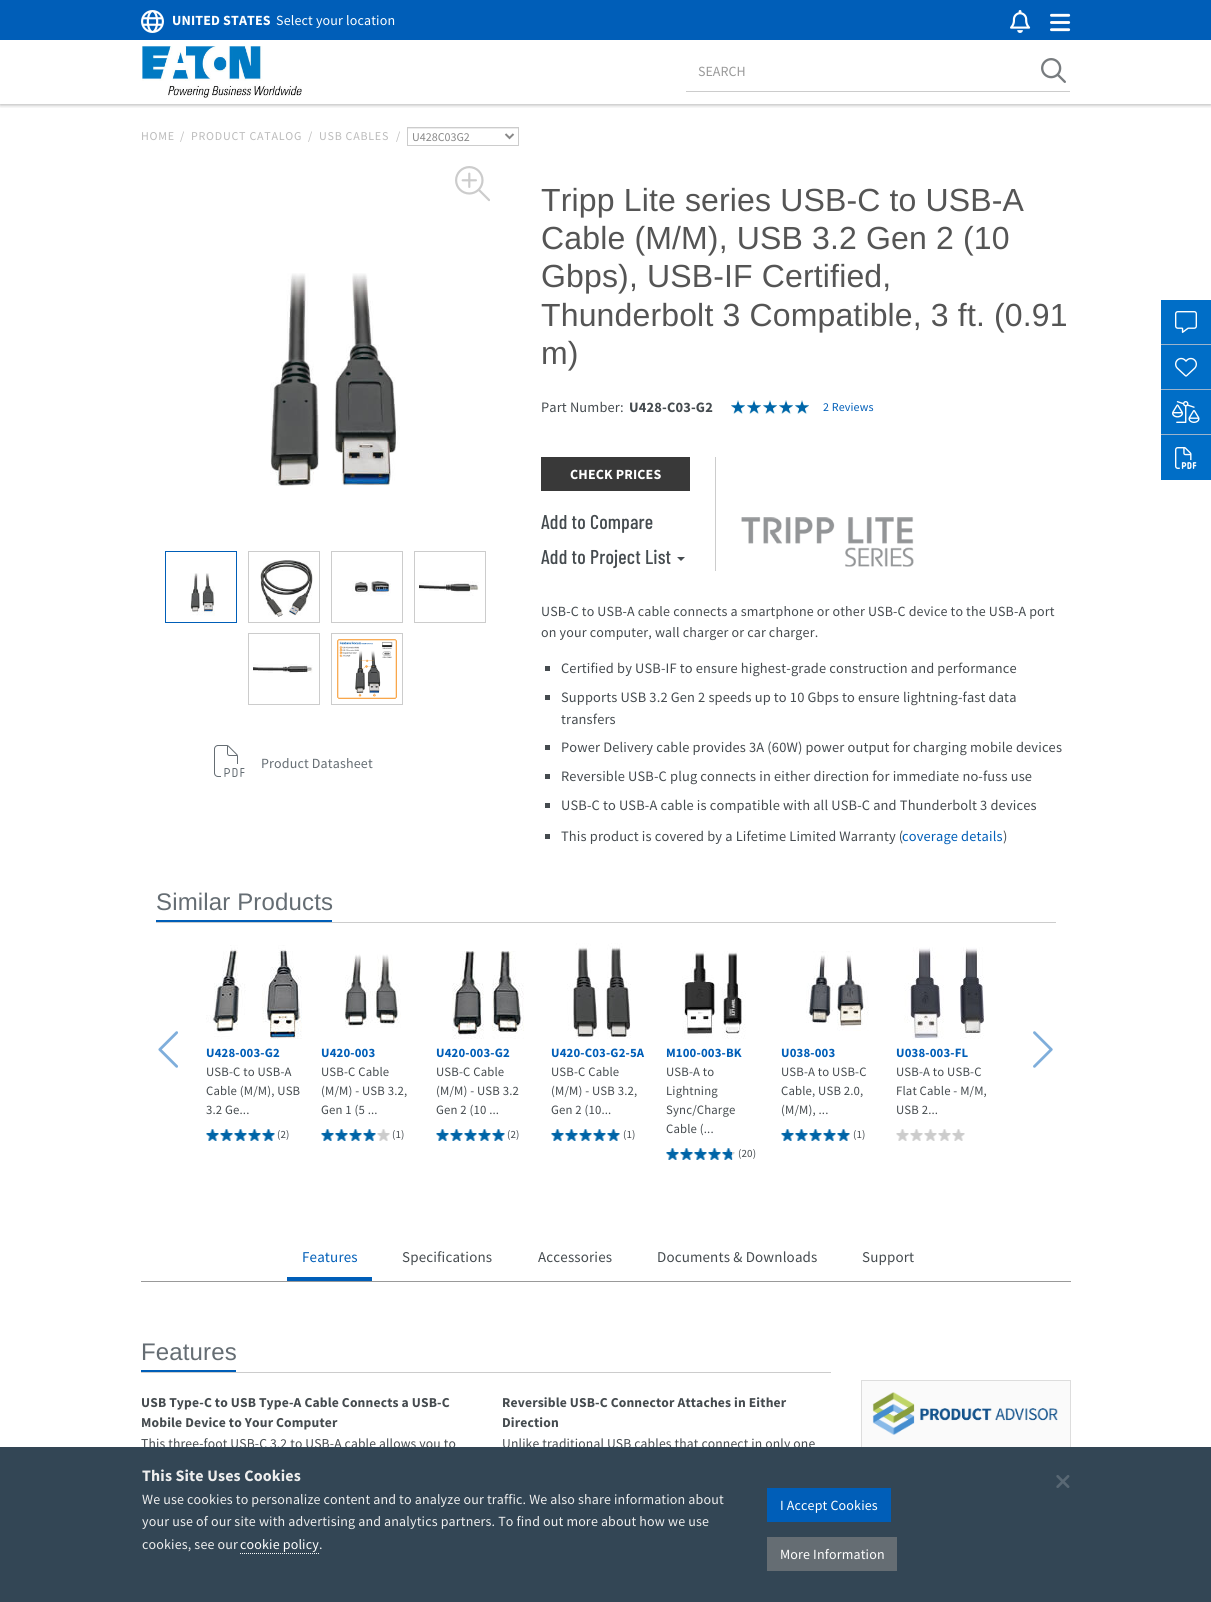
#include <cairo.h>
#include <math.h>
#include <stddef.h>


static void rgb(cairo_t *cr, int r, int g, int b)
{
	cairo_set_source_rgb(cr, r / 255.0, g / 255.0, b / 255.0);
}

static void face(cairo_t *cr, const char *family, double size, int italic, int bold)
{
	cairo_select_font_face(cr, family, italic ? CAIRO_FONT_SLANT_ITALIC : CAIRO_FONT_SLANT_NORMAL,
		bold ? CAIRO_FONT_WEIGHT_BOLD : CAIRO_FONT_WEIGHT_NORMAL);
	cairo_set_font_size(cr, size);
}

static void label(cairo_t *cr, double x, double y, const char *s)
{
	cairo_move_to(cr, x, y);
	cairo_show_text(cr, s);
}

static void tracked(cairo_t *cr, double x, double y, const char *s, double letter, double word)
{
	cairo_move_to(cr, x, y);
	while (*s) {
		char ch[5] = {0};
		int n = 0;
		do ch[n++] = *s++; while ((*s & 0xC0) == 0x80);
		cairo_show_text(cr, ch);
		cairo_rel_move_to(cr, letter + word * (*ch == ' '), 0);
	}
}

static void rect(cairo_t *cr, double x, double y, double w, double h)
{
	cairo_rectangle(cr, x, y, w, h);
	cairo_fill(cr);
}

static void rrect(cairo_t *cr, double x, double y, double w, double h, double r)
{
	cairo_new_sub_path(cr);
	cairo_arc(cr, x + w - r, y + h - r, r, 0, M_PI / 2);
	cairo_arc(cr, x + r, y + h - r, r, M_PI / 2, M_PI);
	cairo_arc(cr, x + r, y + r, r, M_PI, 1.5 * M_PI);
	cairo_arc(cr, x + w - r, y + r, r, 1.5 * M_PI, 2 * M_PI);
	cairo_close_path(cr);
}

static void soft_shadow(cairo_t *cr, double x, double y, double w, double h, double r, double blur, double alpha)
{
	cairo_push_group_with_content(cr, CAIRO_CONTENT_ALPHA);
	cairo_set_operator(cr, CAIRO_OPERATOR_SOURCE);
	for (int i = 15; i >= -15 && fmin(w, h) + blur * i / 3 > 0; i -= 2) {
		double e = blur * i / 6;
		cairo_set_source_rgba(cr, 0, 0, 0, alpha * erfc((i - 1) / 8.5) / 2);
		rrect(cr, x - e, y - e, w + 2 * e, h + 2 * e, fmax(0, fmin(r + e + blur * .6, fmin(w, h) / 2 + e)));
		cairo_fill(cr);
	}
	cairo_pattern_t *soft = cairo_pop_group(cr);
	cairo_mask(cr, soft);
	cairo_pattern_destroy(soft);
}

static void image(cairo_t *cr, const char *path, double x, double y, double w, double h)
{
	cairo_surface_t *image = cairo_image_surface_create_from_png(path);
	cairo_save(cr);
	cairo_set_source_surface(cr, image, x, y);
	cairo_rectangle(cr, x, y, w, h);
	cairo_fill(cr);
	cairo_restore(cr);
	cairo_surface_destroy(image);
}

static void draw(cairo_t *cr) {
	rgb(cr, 255, 255, 255);
	cairo_paint(cr);
	cairo_save(cr);
	cairo_rectangle(cr, 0, 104, 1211, 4);
	cairo_clip(cr);
	rgb(cr, 0, 0, 0);
	soft_shadow(cr, 0, 1, 1211, 104, 0, 2, 0.3);
	cairo_restore(cr);
	rgb(cr, 0, 94, 184);
	rect(cr, 0, 0, 1211, 40);
	image(cr, "image0.png", 141, 10, 23, 23);
	face(cr, "Source Sans Pro", 14, 0, 1);
	rgb(cr, 255, 255, 255);
	tracked(cr, 172, 25, "UNITED STATES", 0.15, 0);
	face(cr, "Source Sans Pro", 14, 0, 0);
	tracked(cr, 276, 25, "Select your location", 0.15, 0);
	image(cr, "image1.png", 1010, 10, 21, 23);
	image(cr, "image2.png", 1050, 13, 21, 19);
	image(cr, "image3.png", 142, 46, 160, 52);
	rgb(cr, 204, 204, 204);
	rect(cr, 686, 91, 384, 1);
	rgb(cr, 153, 153, 153);
	label(cr, 698, 76, "SEARCH");
	image(cr, "image4.png", 1041, 58, 25, 25);
	face(cr, "Source Sans Pro", 12, 0, 0);
	rgb(cr, 187, 187, 187);
	tracked(cr, 141, 140, "HOME", 0.75, 0);
	tracked(cr, 180, 140, "/", 0.75, 0);
	tracked(cr, 191, 140, "PRODUCT CATALOG", 0.75, 0);
	tracked(cr, 308, 140, "/", 0.75, 0);
	tracked(cr, 319, 140, "USB CABLES", 0.75, 0);
	tracked(cr, 396, 140, "/", 0.75, 0);
	rgb(cr, 236, 236, 236);
	rect(cr, 408, 128, 110, 1);
	cairo_rectangle(cr, 407.5, 127.5, 111, 18);
	rgb(cr, 204, 204, 204);
	cairo_set_line_width(cr, 1);
	cairo_stroke(cr);
	cairo_new_path(cr);
	cairo_move_to(cr, 505.5, 134);
	cairo_line_to(cr, 509.5, 138);
	cairo_line_to(cr, 513.5, 134);
	rgb(cr, 136, 136, 136);
	cairo_set_line_width(cr, 2);
	cairo_stroke(cr);
	label(cr, 412, 141, "U428C03G2");
	image(cr, "image5.png", 455, 166, 35, 36);
	image(cr, "image6.png", 270, 273, 130, 213);
	cairo_rectangle(cr, 165.5, 551.5, 71, 71);
	rgb(cr, 0, 94, 184);
	cairo_set_line_width(cr, 1);
	cairo_stroke(cr);
	cairo_rectangle(cr, 248.5, 551.5, 71, 71);
	rgb(cr, 204, 204, 204);
	cairo_stroke(cr);
	cairo_rectangle(cr, 331.5, 551.5, 71, 71);
	cairo_stroke(cr);
	cairo_rectangle(cr, 414.5, 551.5, 71, 71);
	cairo_stroke(cr);
	image(cr, "image7.png", 190, 573, 25, 43);
	image(cr, "image8.png", 260, 560, 53, 57);
	image(cr, "image9.png", 352, 581, 39, 15);
	image(cr, "image10.png", 419, 581, 60, 15);
	cairo_rectangle(cr, 248.5, 633.5, 71, 71);
	cairo_stroke(cr);
	cairo_rectangle(cr, 331.5, 633.5, 71, 71);
	cairo_stroke(cr);
	image(cr, "image11.png", 253, 664, 60, 9);
	image(cr, "image12.png", 337, 639, 60, 60);
	image(cr, "image13.png", 214, 745, 31, 32);
	face(cr, "Source Sans Pro", 14, 0, 0);
	rgb(cr, 101, 109, 115);
	tracked(cr, 261, 768, "Product Datasheet", 0.15, 0);
	face(cr, "Liberation Sans", 32, 0, 0);
	rgb(cr, 85, 85, 85);
	tracked(cr, 541, 211, "Tripp Lite series USB-C to USB-A", 0.15, 0);
	tracked(cr, 541, 249, "Cable (M/M), USB 3.2 Gen 2 (10", 0.15, 0);
	tracked(cr, 541, 287, "Gbps), USB-IF Certified,", 0.15, 0);
	tracked(cr, 541, 326, "Thunderbolt 3 Compatible, 3 ft. (0.91", 0.15, 0);
	tracked(cr, 541, 364, "m)", 0.15, 0);
	face(cr, "Source Sans Pro", 14.4, 0, 0);
	rgb(cr, 69, 75, 79);
	tracked(cr, 541, 412, "Part Number:", 0.15, 0);
	face(cr, "Source Sans Pro", 14.4, 0, 1);
	tracked(cr, 629, 412, "U428-C03-G2", 0.15, 0);
	image(cr, "image14.png", 731, 400, 14, 14);
	image(cr, "image14.png", 747, 400, 14, 14);
	image(cr, "image14.png", 763, 400, 14, 14);
	image(cr, "image14.png", 779, 400, 14, 14);
	image(cr, "image14.png", 795, 400, 14, 14);
	face(cr, "Source Sans Pro", 12, 0, 0);
	rgb(cr, 0, 94, 184);
	tracked(cr, 823, 411, "2 Reviews", 0.15, 0);
	rgb(cr, 57, 57, 57);
	rect(cr, 541, 457, 149, 34);
	face(cr, "Source Sans Pro", 14, 0, 1);
	rgb(cr, 255, 255, 255);
	tracked(cr, 570, 479, "CHECK PRICES", 0.15, 0);
	face(cr, "Barlow Condensed Medium", 20, 0, 0);
	rgb(cr, 69, 75, 79);
	tracked(cr, 541, 529, "Add to Compare", 0.15, 0);
	tracked(cr, 541, 564, "Add to Project List", 0.15, 0);
	cairo_new_path(cr);
	cairo_move_to(cr, 677, 557);
	cairo_line_to(cr, 685, 557);
	cairo_line_to(cr, 681, 561);
	cairo_close_path(cr);
	cairo_fill(cr);
	rgb(cr, 204, 204, 204);
	rect(cr, 715, 457, 1, 114);
	image(cr, "image15.png", 741, 517, 173, 50);
	face(cr, "Source Sans Pro", 14, 0, 0);
	rgb(cr, 69, 75, 79);
	tracked(cr, 541, 616, "USB-C to USB-A cable connects a smartphone or other USB-C device to the USB-A port", 0.15, 0);
	tracked(cr, 541, 637, "on your computer, wall charger or car charger.", 0.15, 0);
	rect(cr, 545, 666, 5, 5);
	face(cr, "Source Sans Pro", 14.4, 0, 0);
	tracked(cr, 561, 673, "Certified by USB-IF to ensure highest-grade construction and performance", 0.15, 0);
	rect(cr, 545, 695, 5, 5);
	tracked(cr, 561, 702, "Supports USB 3.2 Gen 2 speeds up to 10 Gbps to ensure lightning-fast data", 0.15, 0);
	tracked(cr, 561, 724, "transfers", 0.15, 0);
	rect(cr, 545, 745, 5, 5);
	tracked(cr, 561, 752, "Power Delivery cable provides 3A (60W) power output for charging mobile devices", 0.15, 0);
	rect(cr, 545, 774, 5, 5);
	tracked(cr, 561, 781, "Reversible USB-C plug connects in either direction for immediate no-fuss use", 0.15, 0);
	rect(cr, 545, 803, 5, 5);
	tracked(cr, 561, 810, "USB-C to USB-A cable is compatible with all USB-C and Thunderbolt 3 devices", 0.15, 0);
	rect(cr, 545, 834, 5, 5);
	tracked(cr, 561, 841, "This product is covered by a Lifetime Limited Warranty (", 0.15, 0);
	rgb(cr, 0, 94, 184);
	tracked(cr, 902, 841, "coverage details", 0.15, 0);
	rgb(cr, 69, 75, 79);
	tracked(cr, 1003, 841, ")", 0.15, 0);
	rgb(cr, 204, 204, 204);
	rect(cr, 156, 922, 900, 1);
	rgb(cr, 0, 94, 184);
	rect(cr, 156, 920, 176, 2);
	face(cr, "Liberation Sans", 24, 0, 0);
	rgb(cr, 101, 109, 115);
	tracked(cr, 156, 910, "Similar Products", 0.15, 0);
	image(cr, "image16.png", 158, 1031, 20, 37);
	image(cr, "image17.png", 206, 945, 96, 94);
	face(cr, "Source Sans Pro", 12.75, 0, 1);
	rgb(cr, 0, 94, 184);
	tracked(cr, 206, 1057, "U428-003-G2", 0.15, 0);
	face(cr, "Source Sans Pro", 12.75, 0, 0);
	rgb(cr, 69, 75, 79);
	tracked(cr, 206, 1076, "USB-C to USB-A", 0.15, 0);
	tracked(cr, 206, 1095, "Cable (M/M), USB", 0.15, 0);
	tracked(cr, 206, 1114, "3.2 Ge...", 0.15, 0);
	rgb(cr, 0, 100, 167);
	rect(cr, 206, 1129, 69, 12);
	image(cr, "image18.png", 206, 1129, 69, 12);
	face(cr, "Source Sans Pro", 11, 0, 0);
	rgb(cr, 69, 75, 79);
	tracked(cr, 277, 1138, "(2)", 0.15, 0);
	image(cr, "image19.png", 345, 954, 56, 74);
	face(cr, "Source Sans Pro", 12.75, 0, 1);
	rgb(cr, 0, 94, 184);
	tracked(cr, 321, 1057, "U420-003", 0.15, 0);
	face(cr, "Source Sans Pro", 12.75, 0, 0);
	rgb(cr, 69, 75, 79);
	tracked(cr, 321, 1076, "USB-C Cable", 0.15, 0);
	tracked(cr, 321, 1095, "(M/M) - USB 3.2,", 0.15, 0);
	tracked(cr, 321, 1114, "Gen 1 (5 ...", 0.15, 0);
	rgb(cr, 204, 204, 204);
	rect(cr, 377, 1129, 13, 12);
	rgb(cr, 0, 100, 167);
	rect(cr, 321, 1129, 55, 12);
	image(cr, "image20.png", 321, 1129, 69, 12);
	face(cr, "Source Sans Pro", 11, 0, 0);
	rgb(cr, 69, 75, 79);
	tracked(cr, 392, 1138, "(1)", 0.15, 0);
	image(cr, "image21.png", 452, 951, 72, 88);
	face(cr, "Source Sans Pro", 12.75, 0, 1);
	rgb(cr, 0, 94, 184);
	tracked(cr, 436, 1057, "U420-003-G2", 0.15, 0);
	face(cr, "Source Sans Pro", 12.75, 0, 0);
	rgb(cr, 69, 75, 79);
	tracked(cr, 436, 1076, "USB-C Cable", 0.15, 0);
	tracked(cr, 436, 1095, "(M/M) - USB 3.2", 0.15, 0);
	tracked(cr, 436, 1114, "Gen 2 (10 ...", 0.15, 0);
	rgb(cr, 0, 100, 167);
	rect(cr, 436, 1129, 69, 12);
	image(cr, "image18.png", 436, 1129, 69, 12);
	face(cr, "Source Sans Pro", 11, 0, 0);
	rgb(cr, 69, 75, 79);
	tracked(cr, 507, 1138, "(2)", 0.15, 0);
	image(cr, "image22.png", 567, 943, 64, 96);
	face(cr, "Source Sans Pro", 12.75, 0, 1);
	rgb(cr, 0, 94, 184);
	tracked(cr, 551, 1057, "U420-C03-G2-5A", 0.15, 0);
	face(cr, "Source Sans Pro", 12.75, 0, 0);
	rgb(cr, 69, 75, 79);
	tracked(cr, 551, 1076, "USB-C Cable", 0.15, 0);
	tracked(cr, 551, 1095, "(M/M) - USB 3.2,", 0.15, 0);
	tracked(cr, 551, 1114, "Gen 2 (10...", 0.15, 0);
	rgb(cr, 0, 100, 167);
	rect(cr, 551, 1129, 69, 12);
	image(cr, "image18.png", 551, 1129, 69, 12);
	face(cr, "Source Sans Pro", 11, 0, 0);
	rgb(cr, 69, 75, 79);
	tracked(cr, 623, 1138, "(1)", 0.15, 0);
	image(cr, "image23.png", 682, 951, 64, 88);
	face(cr, "Source Sans Pro", 12.75, 0, 1);
	rgb(cr, 0, 94, 184);
	tracked(cr, 666, 1057, "M100-003-BK", 0.15, 0);
	face(cr, "Source Sans Pro", 12.75, 0, 0);
	rgb(cr, 69, 75, 79);
	tracked(cr, 666, 1076, "USB-A to", 0.15, 0);
	tracked(cr, 666, 1095, "Lightning", 0.15, 0);
	tracked(cr, 666, 1114, "Sync/Charge", 0.15, 0);
	tracked(cr, 666, 1133, "Cable (...", 0.15, 0);
	rgb(cr, 204, 204, 204);
	rect(cr, 732, 1152, 3, 8);
	rgb(cr, 0, 100, 167);
	rect(cr, 666, 1148, 66, 12);
	image(cr, "image24.png", 666, 1148, 69, 12);
	face(cr, "Source Sans Pro", 11, 0, 0);
	rgb(cr, 69, 75, 79);
	tracked(cr, 738, 1157, "(20)", 0.15, 0);
	image(cr, "image25.png", 806, 951, 63, 80);
	face(cr, "Source Sans Pro", 12.75, 0, 1);
	rgb(cr, 0, 94, 184);
	tracked(cr, 781, 1057, "U038-003", 0.15, 0);
	face(cr, "Source Sans Pro", 12.75, 0, 0);
	rgb(cr, 69, 75, 79);
	tracked(cr, 781, 1076, "USB-A to USB-C", 0.15, 0);
	tracked(cr, 781, 1095, "Cable, USB 2.0,", 0.15, 0);
	tracked(cr, 781, 1114, "(M/M), ...", 0.15, 0);
	rgb(cr, 0, 100, 167);
	rect(cr, 781, 1129, 69, 12);
	image(cr, "image18.png", 781, 1129, 69, 12);
	face(cr, "Source Sans Pro", 11, 0, 0);
	rgb(cr, 69, 75, 79);
	tracked(cr, 853, 1138, "(1)", 0.15, 0);
	image(cr, "image26.png", 904, 947, 80, 92);
	face(cr, "Source Sans Pro", 12.75, 0, 1);
	rgb(cr, 0, 94, 184);
	tracked(cr, 896, 1057, "U038-003-FL", 0.15, 0);
	face(cr, "Source Sans Pro", 12.75, 0, 0);
	rgb(cr, 69, 75, 79);
	tracked(cr, 896, 1076, "USB-A to USB-C", 0.15, 0);
	tracked(cr, 896, 1095, "Flat Cable - M/M,", 0.15, 0);
	tracked(cr, 896, 1114, "USB 2...", 0.15, 0);
	rgb(cr, 204, 204, 204);
	rect(cr, 896, 1129, 69, 12);
	image(cr, "image27.png", 896, 1129, 69, 12);
	image(cr, "image28.png", 1033, 1031, 20, 37);
	rgb(cr, 153, 153, 153);
	rect(cr, 141, 1281, 930, 1);
	rgb(cr, 0, 94, 184);
	rect(cr, 287, 1277, 85, 4);
	face(cr, "Source Sans Pro", 15, 0, 0);
	tracked(cr, 302, 1262, "Features", 0.15, 0);
	rgb(cr, 69, 75, 79);
	tracked(cr, 402, 1262, "Specifications", 0.15, 0);
	tracked(cr, 538, 1262, "Accessories", 0.15, 0);
	tracked(cr, 657, 1262, "Documents & Downloads", 0.15, 0);
	tracked(cr, 862, 1262, "Support", 0.15, 0);
	rgb(cr, 204, 204, 204);
	rect(cr, 141, 1372, 690, 1);
	rgb(cr, 0, 94, 184);
	rect(cr, 141, 1370, 95, 2);
	face(cr, "Liberation Sans", 24, 0, 0);
	rgb(cr, 101, 109, 115);
	tracked(cr, 141, 1360, "Features", 0.15, 0);
	face(cr, "Source Sans Pro", 13.6, 0, 1);
	rgb(cr, 69, 75, 79);
	tracked(cr, 141, 1407, "USB Type-C to USB Type-A Cable Connects a USB-C", 0.15, 0);
	tracked(cr, 141, 1427, "Mobile Device to Your Computer", 0.15, 0);
	face(cr, "Source Sans Pro", 13.6, 0, 0);
	tracked(cr, 141, 1448, "This three-foot USB-C 3.2 to USB-A cable allows you to", 0.15, 0);
	face(cr, "Source Sans Pro", 13.6, 0, 1);
	tracked(cr, 502, 1407, "Reversible USB-C Connector Attaches in Either", 0.15, 0);
	tracked(cr, 502, 1427, "Direction", 0.15, 0);
	face(cr, "Source Sans Pro", 13.6, 0, 0);
	tracked(cr, 502, 1448, "Unlike traditional USB cables that connect in only one", 0.15, 0);
	rgb(cr, 250, 250, 250);
	rect(cr, 862, 1381, 208, 66);
	cairo_rectangle(cr, 861.5, 1380.5, 209, 214);
	rgb(cr, 221, 221, 221);
	cairo_stroke(cr);
	image(cr, "image29.png", 872, 1392, 186, 43);
	rgb(cr, 0, 110, 199);
	rect(cr, 1161, 300, 50, 44);
	rgb(cr, 156, 179, 203);
	rect(cr, 1161, 344, 50, 1);
	image(cr, "image30.png", 1175, 311, 22, 22);
	rgb(cr, 0, 110, 199);
	rect(cr, 1161, 345, 50, 44);
	rgb(cr, 156, 179, 203);
	rect(cr, 1161, 389, 50, 1);
	image(cr, "image31.png", 1175, 357, 22, 20);
	rgb(cr, 0, 110, 199);
	rect(cr, 1161, 390, 50, 44);
	rgb(cr, 156, 179, 203);
	rect(cr, 1161, 434, 50, 1);
	image(cr, "image32.png", 1172, 401, 28, 22);
	rgb(cr, 0, 110, 199);
	rect(cr, 1161, 435, 50, 45);
	image(cr, "image33.png", 1175, 447, 22, 22);
	rgb(cr, 51, 70, 85);
	rect(cr, 0, 1447, 1211, 155);
	face(cr, "Source Sans Pro", 16, 0, 1);
	rgb(cr, 238, 238, 238);
	tracked(cr, 142, 1481, "This Site Uses Cookies", 0.15, 0);
	face(cr, "Source Sans Pro", 14, 0, 0);
	tracked(cr, 142, 1504, "We use cookies to personalize content and to analyze our traffic. We also share information about", 0.15, 0);
	tracked(cr, 142, 1526, "your use of our site with advertising and analytics partners. To find out more about how we use", 0.15, 0);
	tracked(cr, 142, 1549, "cookies, see our", 0.15, 0);
	rgb(cr, 255, 255, 255);
	tracked(cr, 240, 1549, "cookie policy", 0.15, 0);
	rgb(cr, 238, 238, 238);
	tracked(cr, 319, 1549, ".", 0.15, 0);
	cairo_new_path(cr);
	cairo_move_to(cr, 240, 1553.5);
	cairo_line_to(cr, 319, 1553.5);
	rgb(cr, 255, 255, 255);
	cairo_set_dash(cr, (double[]){1, 1}, 2, 0);
	cairo_stroke(cr);
	image(cr, "image34.png", 1056, 1475, 14, 13);
	rgb(cr, 0, 94, 184);
	rect(cr, 767, 1488, 124, 34);
	rgb(cr, 255, 255, 255);
	tracked(cr, 780, 1510, "I Accept Cookies", 0.15, 0);
	rgb(cr, 101, 109, 115);
	rect(cr, 767, 1537, 130, 34);
	rgb(cr, 255, 255, 255);
	tracked(cr, 780, 1559, "More Information", 0.15, 0);
}

int main(void) {
	cairo_surface_t *surface = cairo_image_surface_create(CAIRO_FORMAT_RGB24, 1211, 1602);
	cairo_t *cr = cairo_create(surface);
	cairo_font_options_t *options = cairo_font_options_create();
	cairo_font_options_set_hint_metrics(options, CAIRO_HINT_METRICS_OFF);
	cairo_font_options_set_hint_style(options, CAIRO_HINT_STYLE_NONE);
	cairo_set_font_options(cr, options);
	cairo_set_miter_limit(cr, 4);
	draw(cr);
	cairo_surface_write_to_png(surface, "render.png");
	cairo_font_options_destroy(options);
	cairo_destroy(cr);
	cairo_surface_destroy(surface);
	return 0;
}
